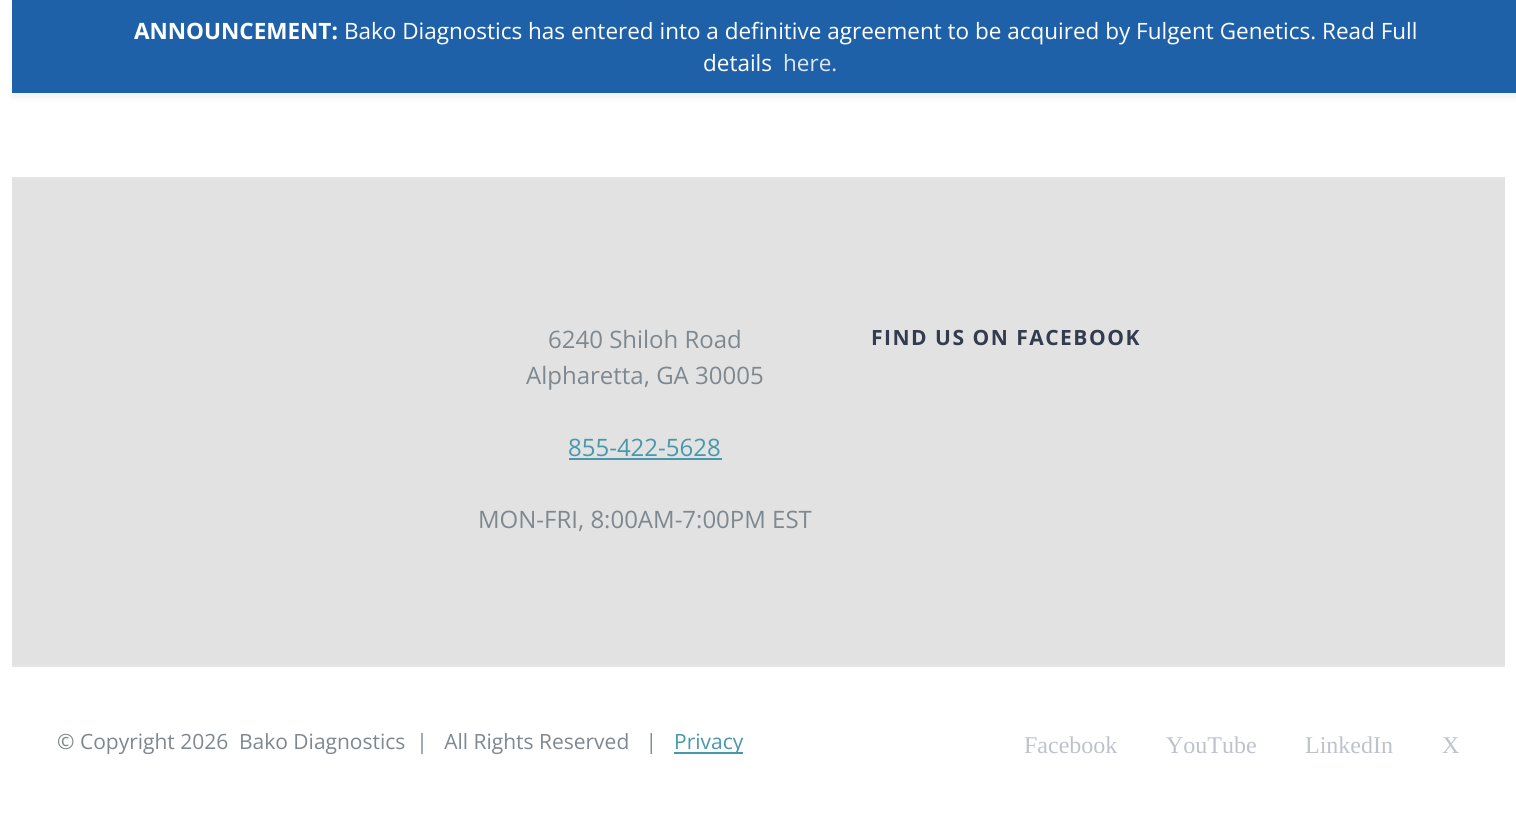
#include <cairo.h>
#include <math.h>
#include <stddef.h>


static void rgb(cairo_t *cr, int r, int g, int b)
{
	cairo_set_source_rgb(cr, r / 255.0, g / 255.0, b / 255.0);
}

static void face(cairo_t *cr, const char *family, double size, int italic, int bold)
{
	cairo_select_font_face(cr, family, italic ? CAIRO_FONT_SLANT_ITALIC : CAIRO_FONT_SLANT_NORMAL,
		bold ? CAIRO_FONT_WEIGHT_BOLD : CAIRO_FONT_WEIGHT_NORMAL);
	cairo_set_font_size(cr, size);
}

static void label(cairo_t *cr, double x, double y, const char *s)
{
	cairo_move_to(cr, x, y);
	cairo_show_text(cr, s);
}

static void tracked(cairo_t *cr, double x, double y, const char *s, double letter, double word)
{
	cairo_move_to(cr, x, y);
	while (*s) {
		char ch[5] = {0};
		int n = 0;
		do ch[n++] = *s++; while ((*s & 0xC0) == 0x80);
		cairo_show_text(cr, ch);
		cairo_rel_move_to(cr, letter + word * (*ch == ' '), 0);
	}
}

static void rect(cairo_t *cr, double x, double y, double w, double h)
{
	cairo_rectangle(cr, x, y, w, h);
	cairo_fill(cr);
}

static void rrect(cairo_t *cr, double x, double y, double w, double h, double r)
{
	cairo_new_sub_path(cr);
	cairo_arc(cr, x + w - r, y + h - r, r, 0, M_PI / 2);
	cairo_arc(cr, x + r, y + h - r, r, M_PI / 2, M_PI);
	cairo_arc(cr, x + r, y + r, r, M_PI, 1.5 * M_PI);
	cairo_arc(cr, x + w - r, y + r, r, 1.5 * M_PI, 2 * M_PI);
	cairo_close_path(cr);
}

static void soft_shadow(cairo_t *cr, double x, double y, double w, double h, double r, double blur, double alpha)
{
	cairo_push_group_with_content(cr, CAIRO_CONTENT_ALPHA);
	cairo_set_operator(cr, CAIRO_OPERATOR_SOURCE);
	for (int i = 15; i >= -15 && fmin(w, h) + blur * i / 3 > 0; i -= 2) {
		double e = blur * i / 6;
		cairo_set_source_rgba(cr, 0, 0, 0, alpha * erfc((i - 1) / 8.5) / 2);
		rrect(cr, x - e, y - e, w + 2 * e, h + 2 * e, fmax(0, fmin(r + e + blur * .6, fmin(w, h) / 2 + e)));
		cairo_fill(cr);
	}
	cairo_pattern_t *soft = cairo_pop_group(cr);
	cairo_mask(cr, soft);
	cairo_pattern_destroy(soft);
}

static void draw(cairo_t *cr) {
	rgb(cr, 255, 255, 255);
	cairo_paint(cr);
	rgb(cr, 0, 0, 0);
	soft_shadow(cr, 12, 5, 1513, 93, 0, 3, 0.05);
	rgb(cr, 31, 97, 169);
	rect(cr, 12, 0, 1504, 93);
	face(cr, "Open Sans", 22.5, 0, 1);
	rgb(cr, 255, 255, 255);
	label(cr, 134, 39, "ANNOUNCEMENT:");
	face(cr, "Open Sans", 22.5, 0, 0);
	label(cr, 344, 39, "Bako Diagnostics has entered into a definitive agreement to be acquired by Fulgent Genetics. Read Full");
	label(cr, 703, 71, "details");
	rgb(cr, 222, 230, 239);
	label(cr, 783, 71, "here.");
	rgb(cr, 226, 226, 226);
	rect(cr, 12, 179, 1493, 486);
	rgb(cr, 231, 228, 226);
	rect(cr, 12, 177, 1493, 2);
	face(cr, "Open Sans", 24, 0, 0);
	rgb(cr, 126, 136, 144);
	label(cr, 548, 348, "6240 Shiloh Road");
	label(cr, 526, 384, "Alpharetta, GA 30005");
	rgb(cr, 71, 152, 171);
	label(cr, 568, 456, "855-422-5628");
	rect(cr, 569, 458, 153, 2);
	rgb(cr, 126, 136, 144);
	label(cr, 478, 528, "MON-FRI, 8:00AM-7:00PM EST");
	face(cr, "Open Sans", 21, 0, 1);
	rgb(cr, 51, 60, 78);
	tracked(cr, 871, 345, "FIND US ON FACEBOOK", 1.5, 0);
	rgb(cr, 231, 228, 226);
	rect(cr, 12, 665, 1493, 2);
	face(cr, "Open Sans", 21, 0, 0);
	rgb(cr, 126, 136, 144);
	label(cr, 57, 749, "© Copyright 2026");
	label(cr, 239, 749, "Bako Diagnostics  |   All Rights Reserved   |");
	rgb(cr, 71, 152, 171);
	rect(cr, 674, 752, 69, 2);
	label(cr, 674, 749, "Privacy");
	face(cr, "Liberation Serif", 24, 0, 0);
	rgb(cr, 190, 194, 204);
	label(cr, 1024, 753, "Facebook");
	label(cr, 1166, 753, "YouTube");
	label(cr, 1305, 753, "LinkedIn");
	label(cr, 1442, 753, "X");
}

int main(void) {
	cairo_surface_t *surface = cairo_image_surface_create(CAIRO_FORMAT_RGB24, 1516, 817);
	cairo_t *cr = cairo_create(surface);
	cairo_font_options_t *options = cairo_font_options_create();
	cairo_font_options_set_hint_metrics(options, CAIRO_HINT_METRICS_OFF);
	cairo_font_options_set_hint_style(options, CAIRO_HINT_STYLE_NONE);
	cairo_set_font_options(cr, options);
	cairo_set_miter_limit(cr, 4);
	draw(cr);
	cairo_surface_write_to_png(surface, "render.png");
	cairo_font_options_destroy(options);
	cairo_destroy(cr);
	cairo_surface_destroy(surface);
	return 0;
}
